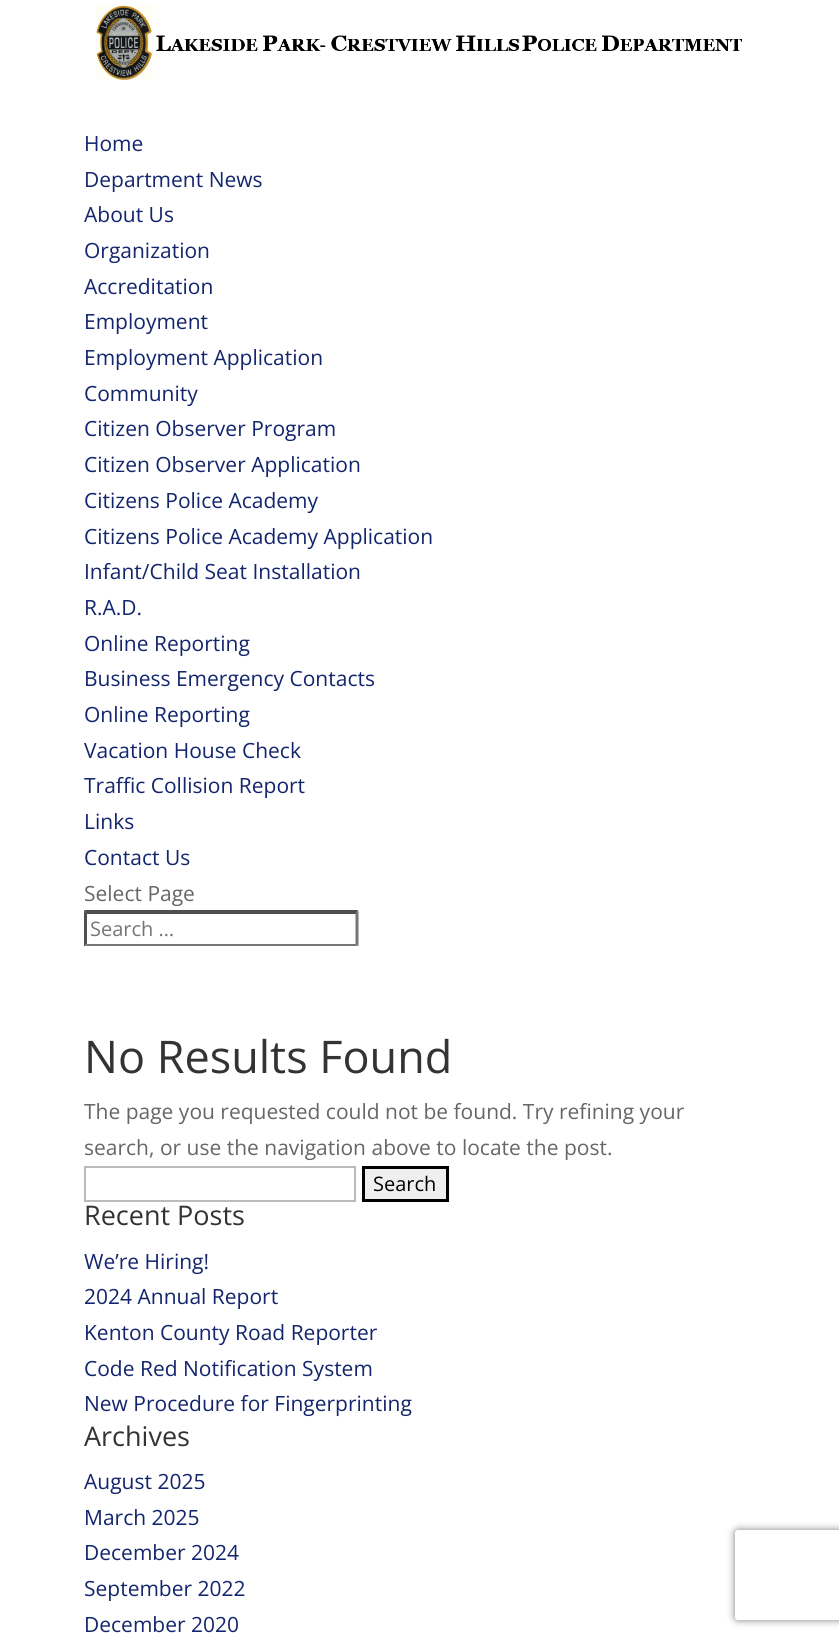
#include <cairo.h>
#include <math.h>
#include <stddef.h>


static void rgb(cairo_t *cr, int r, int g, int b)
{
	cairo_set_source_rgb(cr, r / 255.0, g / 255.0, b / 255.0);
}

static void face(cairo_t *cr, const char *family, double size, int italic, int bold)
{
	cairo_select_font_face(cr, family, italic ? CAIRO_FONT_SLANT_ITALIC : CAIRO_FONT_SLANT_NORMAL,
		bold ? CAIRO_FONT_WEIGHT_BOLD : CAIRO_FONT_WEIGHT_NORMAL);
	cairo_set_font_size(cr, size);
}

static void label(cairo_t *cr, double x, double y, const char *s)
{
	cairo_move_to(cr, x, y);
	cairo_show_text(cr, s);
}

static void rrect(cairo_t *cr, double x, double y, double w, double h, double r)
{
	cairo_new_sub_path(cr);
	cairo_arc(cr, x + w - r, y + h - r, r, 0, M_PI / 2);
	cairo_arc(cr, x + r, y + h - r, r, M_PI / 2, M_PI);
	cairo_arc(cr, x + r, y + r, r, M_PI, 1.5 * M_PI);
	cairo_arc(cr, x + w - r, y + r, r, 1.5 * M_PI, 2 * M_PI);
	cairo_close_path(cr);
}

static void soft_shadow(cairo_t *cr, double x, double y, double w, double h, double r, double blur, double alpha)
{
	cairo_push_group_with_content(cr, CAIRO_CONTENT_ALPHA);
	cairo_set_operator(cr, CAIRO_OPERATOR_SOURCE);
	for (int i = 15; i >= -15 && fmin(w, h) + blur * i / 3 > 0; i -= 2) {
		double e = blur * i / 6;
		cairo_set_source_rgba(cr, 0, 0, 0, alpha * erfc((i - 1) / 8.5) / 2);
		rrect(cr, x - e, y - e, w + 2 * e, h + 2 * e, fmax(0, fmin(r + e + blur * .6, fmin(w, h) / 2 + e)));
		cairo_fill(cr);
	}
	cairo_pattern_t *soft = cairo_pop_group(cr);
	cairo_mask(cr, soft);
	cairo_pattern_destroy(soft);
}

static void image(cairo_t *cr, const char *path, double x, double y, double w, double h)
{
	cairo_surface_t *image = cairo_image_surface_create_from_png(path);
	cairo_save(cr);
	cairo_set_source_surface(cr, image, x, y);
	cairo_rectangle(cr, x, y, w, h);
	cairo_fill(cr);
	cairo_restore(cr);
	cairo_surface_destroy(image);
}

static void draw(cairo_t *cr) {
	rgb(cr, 255, 255, 255);
	cairo_paint(cr);
	image(cr, "image0.png", 96, 5, 646, 75);
	face(cr, "Open Sans", 21, 0, 0);
	rgb(cr, 19, 37, 109);
	label(cr, 84, 151, "Home");
	label(cr, 84, 187, "Department News");
	label(cr, 84, 222, "About Us");
	label(cr, 84, 258, "Organization");
	label(cr, 84, 294, "Accreditation");
	label(cr, 84, 329, "Employment");
	label(cr, 84, 365, "Employment Application");
	label(cr, 84, 401, "Community");
	label(cr, 84, 436, "Citizen Observer Program");
	label(cr, 84, 472, "Citizen Observer Application");
	label(cr, 84, 508, "Citizens Police Academy");
	label(cr, 84, 544, "Citizens Police Academy Application");
	label(cr, 84, 579, "Infant/Child Seat Installation");
	label(cr, 84, 615, "R.A.D.");
	label(cr, 84, 651, "Online Reporting");
	label(cr, 84, 686, "Business Emergency Contacts");
	label(cr, 84, 722, "Online Reporting");
	label(cr, 84, 758, "Vacation House Check");
	label(cr, 84, 793, "Traffic Collision Report");
	label(cr, 84, 829, "Links");
	label(cr, 84, 865, "Contact Us");
	rgb(cr, 102, 102, 102);
	label(cr, 84, 901, "Select Page");
	rgb(cr, 79, 79, 79);
	cairo_new_path(cr);
	cairo_move_to(cr, 84, 910);
	cairo_line_to(cr, 358, 910);
	cairo_line_to(cr, 356, 914);
	cairo_line_to(cr, 87, 914);
	cairo_close_path(cr);
	cairo_fill(cr);
	rgb(cr, 118, 118, 118);
	cairo_new_path(cr);
	cairo_move_to(cr, 358.5, 910.5);
	cairo_line_to(cr, 358.5, 946.5);
	cairo_line_to(cr, 355.5, 943.5);
	cairo_line_to(cr, 355.5, 913.5);
	cairo_close_path(cr);
	cairo_fill(cr);
	cairo_new_path(cr);
	cairo_move_to(cr, 358, 946);
	cairo_line_to(cr, 84, 946);
	cairo_line_to(cr, 87, 944);
	cairo_line_to(cr, 356, 944);
	cairo_close_path(cr);
	cairo_fill(cr);
	rgb(cr, 79, 79, 79);
	cairo_new_path(cr);
	cairo_move_to(cr, 84, 946.5);
	cairo_line_to(cr, 84, 910.5);
	cairo_line_to(cr, 87, 913.5);
	cairo_line_to(cr, 87, 943.5);
	cairo_close_path(cr);
	cairo_fill(cr);
	face(cr, "Open Sans", 20, 0, 0);
	rgb(cr, 117, 117, 117);
	label(cr, 90, 936, "Search …");
	face(cr, "Open Sans", 45, 0, 0);
	rgb(cr, 51, 51, 51);
	label(cr, 84, 1073, "No Results Found");
	face(cr, "Open Sans", 21, 0, 0);
	rgb(cr, 102, 102, 102);
	label(cr, 84, 1119, "The page you requested could not be found. Try refining your");
	label(cr, 84, 1155, "search, or use the navigation above to locate the post.");
	cairo_rectangle(cr, 85, 1167, 270, 34);
	rgb(cr, 187, 187, 187);
	cairo_stroke(cr);
	rgb(cr, 239, 239, 239);
	cairo_rectangle(cr, 363.5, 1167.5, 84, 33);
	cairo_fill_preserve(cr);
	rgb(cr, 0, 0, 0);
	cairo_set_line_width(cr, 3);
	cairo_stroke(cr);
	face(cr, "Open Sans", 20, 0, 0);
	label(cr, 373, 1191, "Search");
	face(cr, "Open Sans", 27, 0, 0);
	rgb(cr, 51, 51, 51);
	label(cr, 84, 1225, "Recent Posts");
	face(cr, "Open Sans", 21, 0, 0);
	rgb(cr, 19, 37, 109);
	label(cr, 84, 1269, "We’re Hiring!");
	label(cr, 84, 1304, "2024 Annual Report");
	label(cr, 84, 1340, "Kenton County Road Reporter");
	label(cr, 84, 1376, "Code Red Notification System");
	label(cr, 84, 1411, "New Procedure for Fingerprinting");
	face(cr, "Open Sans", 27, 0, 0);
	rgb(cr, 51, 51, 51);
	label(cr, 84, 1446, "Archives");
	face(cr, "Open Sans", 21, 0, 0);
	rgb(cr, 19, 37, 109);
	label(cr, 84, 1489, "August 2025");
	label(cr, 84, 1525, "March 2025");
	label(cr, 84, 1560, "December 2024");
	label(cr, 84, 1596, "September 2022");
	label(cr, 84, 1632, "December 2020");
	cairo_save(cr);
	cairo_set_fill_rule(cr, CAIRO_FILL_RULE_EVEN_ODD);
	cairo_new_path(cr);
	cairo_move_to(cr, 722, 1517);
	cairo_line_to(cr, 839, 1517);
	cairo_line_to(cr, 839, 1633);
	cairo_line_to(cr, 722, 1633);
	cairo_close_path(cr);
	cairo_move_to(cr, 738, 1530);
	cairo_line_to(cr, 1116, 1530);
	cairo_curve_to(cr, 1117.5, 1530, 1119, 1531.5, 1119, 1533);
	cairo_line_to(cr, 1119, 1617);
	cairo_curve_to(cr, 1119, 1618.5, 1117.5, 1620, 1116, 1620);
	cairo_line_to(cr, 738, 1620);
	cairo_curve_to(cr, 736.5, 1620, 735, 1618.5, 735, 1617);
	cairo_line_to(cr, 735, 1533);
	cairo_curve_to(cr, 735, 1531.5, 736.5, 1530, 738, 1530);
	cairo_close_path(cr);
	cairo_clip(cr);
	rgb(cr, 128, 128, 128);
	soft_shadow(cr, 735, 1530, 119, 90, 3, 4, 1);
	cairo_restore(cr);
}

int main(void) {
	cairo_surface_t *surface = cairo_image_surface_create(CAIRO_FORMAT_RGB24, 839, 1640);
	cairo_t *cr = cairo_create(surface);
	cairo_font_options_t *options = cairo_font_options_create();
	cairo_font_options_set_hint_metrics(options, CAIRO_HINT_METRICS_OFF);
	cairo_font_options_set_hint_style(options, CAIRO_HINT_STYLE_NONE);
	cairo_set_font_options(cr, options);
	cairo_set_miter_limit(cr, 4);
	draw(cr);
	cairo_surface_write_to_png(surface, "render.png");
	cairo_font_options_destroy(options);
	cairo_destroy(cr);
	cairo_surface_destroy(surface);
	return 0;
}
